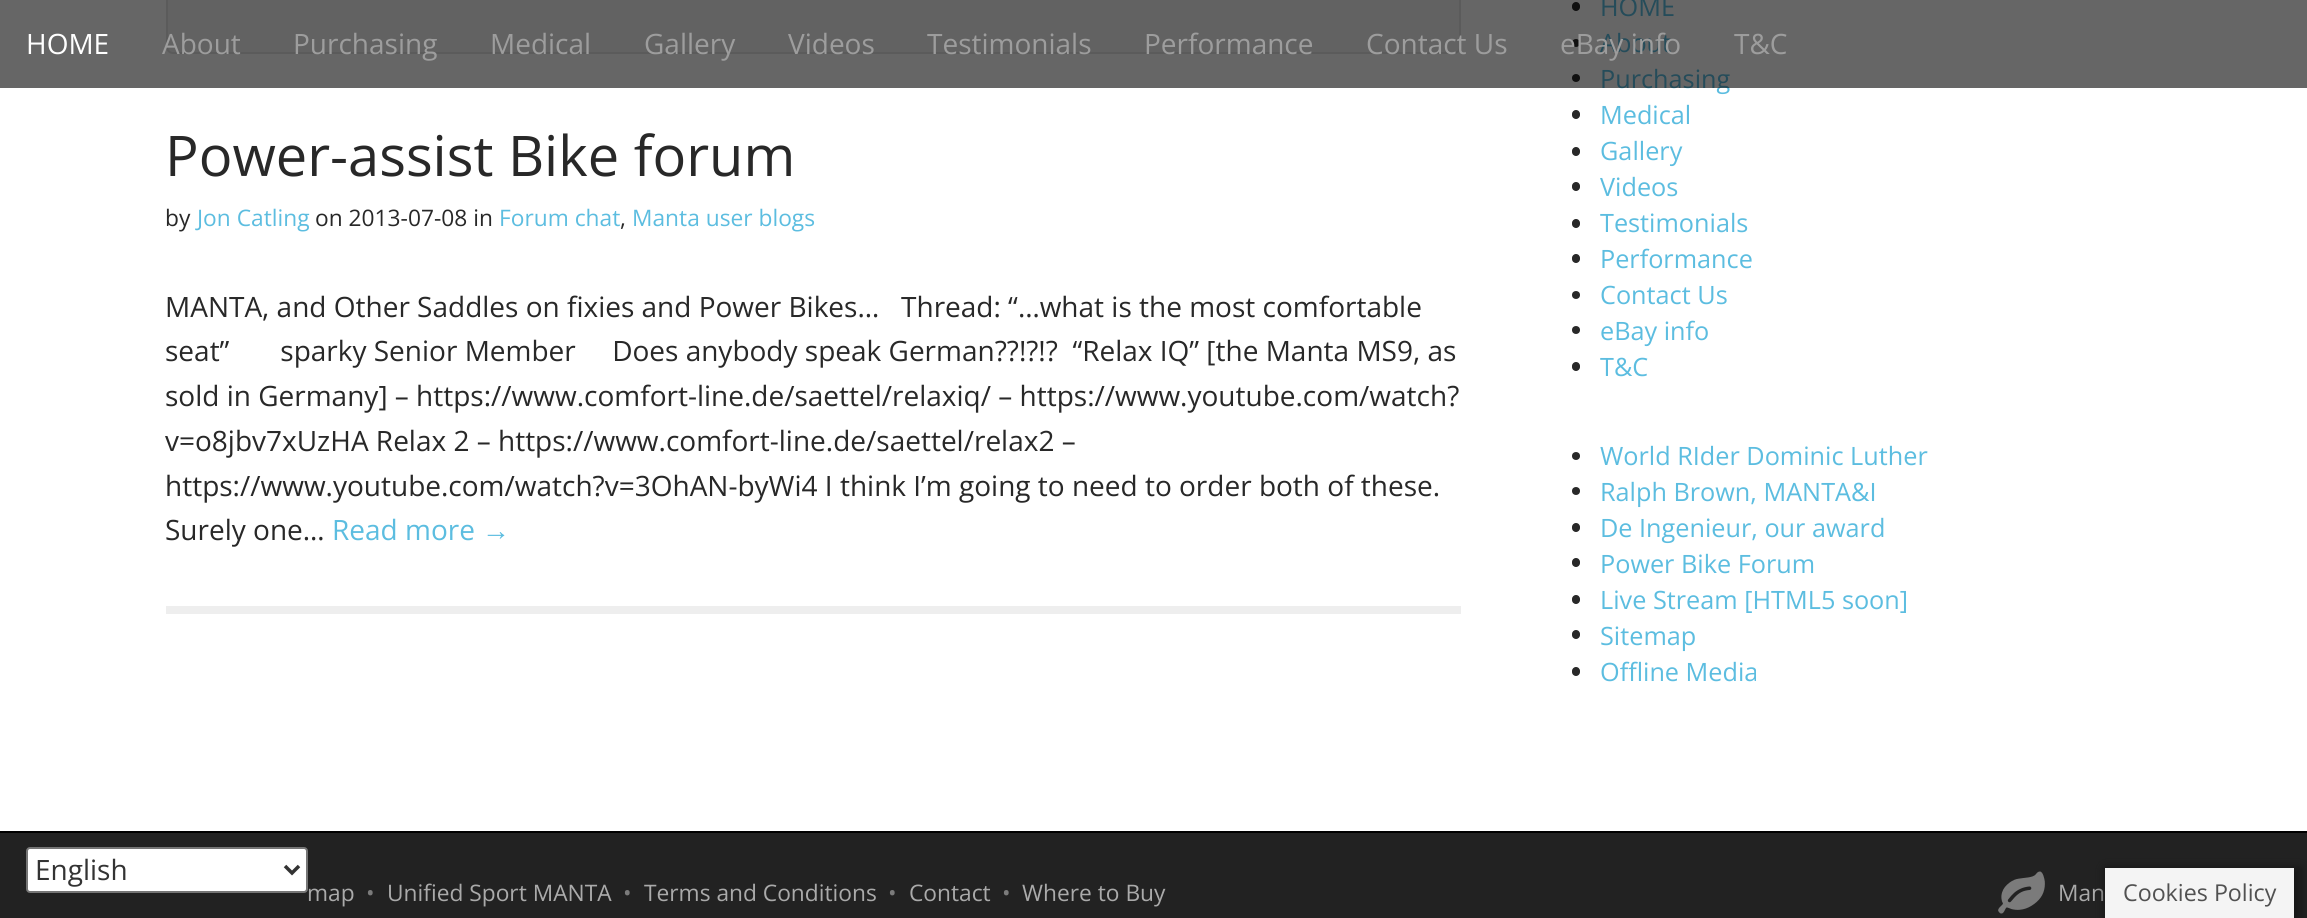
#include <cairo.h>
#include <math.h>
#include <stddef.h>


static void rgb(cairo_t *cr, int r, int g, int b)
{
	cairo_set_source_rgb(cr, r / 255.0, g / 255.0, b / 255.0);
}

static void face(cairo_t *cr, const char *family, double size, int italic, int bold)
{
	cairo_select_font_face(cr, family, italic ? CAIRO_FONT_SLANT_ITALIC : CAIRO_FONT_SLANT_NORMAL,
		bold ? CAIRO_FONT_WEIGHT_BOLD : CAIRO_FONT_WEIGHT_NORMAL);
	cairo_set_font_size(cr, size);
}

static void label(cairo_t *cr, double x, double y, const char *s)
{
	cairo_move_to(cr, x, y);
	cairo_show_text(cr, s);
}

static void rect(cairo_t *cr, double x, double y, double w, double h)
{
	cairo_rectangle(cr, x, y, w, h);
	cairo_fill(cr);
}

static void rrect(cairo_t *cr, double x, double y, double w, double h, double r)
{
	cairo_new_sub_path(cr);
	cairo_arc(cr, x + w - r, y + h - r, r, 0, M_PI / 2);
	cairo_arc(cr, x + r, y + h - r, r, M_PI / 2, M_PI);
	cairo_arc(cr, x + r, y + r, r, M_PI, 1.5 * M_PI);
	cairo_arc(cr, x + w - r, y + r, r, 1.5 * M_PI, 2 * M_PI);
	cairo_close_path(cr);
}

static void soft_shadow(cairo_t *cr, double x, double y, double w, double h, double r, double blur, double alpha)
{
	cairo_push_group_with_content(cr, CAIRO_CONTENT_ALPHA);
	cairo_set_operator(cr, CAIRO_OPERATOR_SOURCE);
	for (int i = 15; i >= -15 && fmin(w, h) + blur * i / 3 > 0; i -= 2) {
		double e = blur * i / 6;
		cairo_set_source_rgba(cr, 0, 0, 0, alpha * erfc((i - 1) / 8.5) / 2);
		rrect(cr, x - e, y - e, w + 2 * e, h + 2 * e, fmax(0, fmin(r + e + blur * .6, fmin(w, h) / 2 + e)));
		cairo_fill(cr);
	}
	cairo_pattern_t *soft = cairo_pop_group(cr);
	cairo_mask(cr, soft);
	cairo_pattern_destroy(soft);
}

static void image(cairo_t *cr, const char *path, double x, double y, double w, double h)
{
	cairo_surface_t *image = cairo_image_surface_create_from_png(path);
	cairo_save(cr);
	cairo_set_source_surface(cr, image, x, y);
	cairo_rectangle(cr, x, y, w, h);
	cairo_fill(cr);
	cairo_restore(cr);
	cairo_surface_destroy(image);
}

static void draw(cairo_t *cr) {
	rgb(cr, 255, 255, 255);
	cairo_paint(cr);
	rgb(cr, 245, 245, 245);
	rrect(cr, 167, -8, 1293, 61, 6);
	cairo_fill_preserve(cr);
	rgb(cr, 227, 227, 227);
	cairo_stroke(cr);
	rgb(cr, 238, 238, 238);
	rect(cr, 166, 606, 1295, 8);
	face(cr, "Open Sans", 56, 0, 0);
	rgb(cr, 40, 40, 40);
	label(cr, 165, 176, "Power-assist Bike forum");
	face(cr, "Open Sans", 22.75, 0, 0);
	label(cr, 165, 226, "by");
	rgb(cr, 92, 189, 224);
	label(cr, 197, 226, "Jon Catling");
	rgb(cr, 40, 40, 40);
	label(cr, 315, 226, "on 2013-07-08 in");
	rgb(cr, 92, 189, 224);
	label(cr, 499, 226, "Forum chat");
	rgb(cr, 40, 40, 40);
	label(cr, 620, 226, ",");
	rgb(cr, 92, 189, 224);
	label(cr, 632, 226, "Manta user blogs");
	face(cr, "Open Sans", 28, 0, 0);
	rgb(cr, 40, 40, 40);
	label(cr, 165, 317, "MANTA, and Other Saddles on fixies and Power Bikes…   Thread: “…what is the most comfortable");
	label(cr, 165, 361, "seat”       sparky Senior Member     Does anybody speak German?\077!?!?  “Relax IQ” [the Manta MS9, as");
	label(cr, 165, 406, "sold in Germany] – https://www.comfort-line.de/saettel/relaxiq/ – https://www.youtube.com/watch?");
	label(cr, 165, 451, "v=o8jbv7xUzHA Relax 2 – https://www.comfort-line.de/saettel/relax2 –");
	label(cr, 165, 496, "https://www.youtube.com/watch?v=3OhAN-byWi4 I think I’m going to need to order both of these.");
	label(cr, 165, 540, "Surely one…");
	rgb(cr, 92, 189, 224);
	label(cr, 332, 540, "Read more");
	face(cr, "Liberation Sans", 28, 0, 0);
	label(cr, 482, 540, "→");
	rgb(cr, 40, 40, 40);
	rrect(cr, 1572, 2, 8, 9, 4);
	cairo_fill(cr);
	face(cr, "Open Sans", 25.25, 0, 0);
	rgb(cr, 92, 189, 224);
	label(cr, 1600, 16, "HOME");
	rgb(cr, 40, 40, 40);
	cairo_new_path(cr);
	cairo_arc(cr, 1576, 43, 4, 0, 2 * M_PI);
	cairo_fill(cr);
	rgb(cr, 92, 189, 224);
	label(cr, 1600, 52, "About");
	rgb(cr, 40, 40, 40);
	cairo_new_path(cr);
	cairo_arc(cr, 1576, 78, 4, 0, 2 * M_PI);
	cairo_fill(cr);
	rgb(cr, 92, 189, 224);
	label(cr, 1600, 88, "Purchasing");
	rgb(cr, 40, 40, 40);
	rrect(cr, 1572, 110, 8, 9, 4);
	cairo_fill(cr);
	rgb(cr, 92, 189, 224);
	label(cr, 1600, 124, "Medical");
	rgb(cr, 40, 40, 40);
	rrect(cr, 1572, 147, 8, 9, 4);
	cairo_fill(cr);
	rgb(cr, 92, 189, 224);
	label(cr, 1600, 160, "Gallery");
	rgb(cr, 40, 40, 40);
	rrect(cr, 1572, 182, 8, 9, 4);
	cairo_fill(cr);
	rgb(cr, 92, 189, 224);
	label(cr, 1600, 196, "Videos");
	rgb(cr, 40, 40, 40);
	rrect(cr, 1572, 219, 8, 9, 4);
	cairo_fill(cr);
	rgb(cr, 92, 189, 224);
	label(cr, 1600, 232, "Testimonials");
	rgb(cr, 40, 40, 40);
	rrect(cr, 1572, 254, 8, 9, 4);
	cairo_fill(cr);
	rgb(cr, 92, 189, 224);
	label(cr, 1600, 268, "Performance");
	rgb(cr, 40, 40, 40);
	cairo_new_path(cr);
	cairo_arc(cr, 1576, 295, 4, 0, 2 * M_PI);
	cairo_fill(cr);
	rgb(cr, 92, 189, 224);
	label(cr, 1600, 304, "Contact Us");
	rgb(cr, 40, 40, 40);
	cairo_new_path(cr);
	cairo_arc(cr, 1576, 330, 4, 0, 2 * M_PI);
	cairo_fill(cr);
	rgb(cr, 92, 189, 224);
	label(cr, 1600, 340, "eBay info");
	rgb(cr, 40, 40, 40);
	rrect(cr, 1572, 362, 8, 9, 4);
	cairo_fill(cr);
	rgb(cr, 92, 189, 224);
	label(cr, 1600, 376, "T&C");
	rgb(cr, 40, 40, 40);
	cairo_new_path(cr);
	cairo_arc(cr, 1576, 456, 4, 0, 2 * M_PI);
	cairo_fill(cr);
	rgb(cr, 92, 189, 224);
	label(cr, 1600, 465, "World RIder Dominic Luther");
	rgb(cr, 40, 40, 40);
	cairo_new_path(cr);
	cairo_arc(cr, 1576, 491, 4, 0, 2 * M_PI);
	cairo_fill(cr);
	rgb(cr, 92, 189, 224);
	label(cr, 1600, 501, "Ralph Brown, MANTA&I");
	rgb(cr, 40, 40, 40);
	rrect(cr, 1572, 523, 8, 9, 4);
	cairo_fill(cr);
	rgb(cr, 92, 189, 224);
	label(cr, 1600, 537, "De Ingenieur, our award");
	rgb(cr, 40, 40, 40);
	rrect(cr, 1572, 558, 8, 9, 4);
	cairo_fill(cr);
	rgb(cr, 92, 189, 224);
	label(cr, 1600, 573, "Power Bike Forum");
	rgb(cr, 40, 40, 40);
	rrect(cr, 1572, 595, 8, 9, 4);
	cairo_fill(cr);
	rgb(cr, 92, 189, 224);
	label(cr, 1600, 609, "Live Stream [HTML5 soon]");
	rgb(cr, 40, 40, 40);
	rrect(cr, 1572, 630, 8, 9, 4);
	cairo_fill(cr);
	rgb(cr, 92, 189, 224);
	label(cr, 1600, 645, "Sitemap");
	rgb(cr, 40, 40, 40);
	rrect(cr, 1572, 667, 8, 9, 4);
	cairo_fill(cr);
	rgb(cr, 92, 189, 224);
	label(cr, 1600, 681, "Offline Media");
	cairo_set_source_rgba(cr, 0, 0, 0, 0.6);
	rect(cr, 0, 0, 2307, 88);
	face(cr, "Open Sans", 28, 0, 0);
	rgb(cr, 255, 255, 255);
	label(cr, 26, 54, "HOME");
	rgb(cr, 157, 157, 157);
	label(cr, 162, 54, "About");
	label(cr, 293, 54, "Purchasing");
	label(cr, 490, 54, "Medical");
	label(cr, 644, 54, "Gallery");
	label(cr, 788, 54, "Videos");
	label(cr, 927, 54, "Testimonials");
	label(cr, 1144, 54, "Performance");
	label(cr, 1366, 54, "Contact Us");
	label(cr, 1560, 54, "eBay info");
	label(cr, 1734, 54, "T&C");
	rgb(cr, 34, 34, 34);
	rect(cr, 0, 833, 2307, 85);
	rgb(cr, 0, 0, 0);
	rect(cr, 0, 831, 2307, 2);
	face(cr, "Open Sans", 22.75, 0, 0);
	rgb(cr, 170, 170, 170);
	label(cr, 307, 901, "map");
	rgb(cr, 123, 123, 123);
	label(cr, 366, 901, "•");
	rgb(cr, 170, 170, 170);
	label(cr, 387, 901, "Unified Sport MANTA");
	rgb(cr, 123, 123, 123);
	label(cr, 623, 901, "•");
	rgb(cr, 170, 170, 170);
	label(cr, 644, 901, "Terms and Conditions");
	rgb(cr, 123, 123, 123);
	label(cr, 888, 901, "•");
	rgb(cr, 170, 170, 170);
	label(cr, 909, 901, "Contact");
	rgb(cr, 123, 123, 123);
	label(cr, 1002, 901, "•");
	rgb(cr, 170, 170, 170);
	label(cr, 1022, 901, "Where to Buy");
	image(cr, "image0.png", 1998, 871, 47, 43);
	label(cr, 2058, 901, "Man");
	rgb(cr, 255, 255, 255);
	rrect(cr, 27, 848, 280, 44, 3);
	cairo_fill_preserve(cr);
	rgb(cr, 118, 118, 118);
	cairo_stroke(cr);
	cairo_new_path(cr);
	cairo_move_to(cr, 285, 866);
	cairo_line_to(cr, 292, 873);
	cairo_line_to(cr, 299, 866);
	rgb(cr, 51, 51, 51);
	cairo_set_line_width(cr, 3.5);
	cairo_stroke(cr);
	face(cr, "Open Sans", 28, 0, 0);
	label(cr, 35, 880, "English");
	rgb(cr, 22, 22, 22);
	soft_shadow(cr, 2105, 868, 196, 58, 0, 4.5, 1);
	rgb(cr, 244, 244, 244);
	rect(cr, 2105, 868, 189, 50);
	face(cr, "Open Sans", 23.25, 0, 0);
	rgb(cr, 81, 81, 81);
	label(cr, 2123, 901, "Cookies Policy");
}

int main(void) {
	cairo_surface_t *surface = cairo_image_surface_create(CAIRO_FORMAT_RGB24, 2307, 918);
	cairo_t *cr = cairo_create(surface);
	cairo_font_options_t *options = cairo_font_options_create();
	cairo_font_options_set_hint_metrics(options, CAIRO_HINT_METRICS_OFF);
	cairo_font_options_set_hint_style(options, CAIRO_HINT_STYLE_NONE);
	cairo_set_font_options(cr, options);
	cairo_set_miter_limit(cr, 4);
	draw(cr);
	cairo_surface_write_to_png(surface, "render.png");
	cairo_font_options_destroy(options);
	cairo_destroy(cr);
	cairo_surface_destroy(surface);
	return 0;
}
